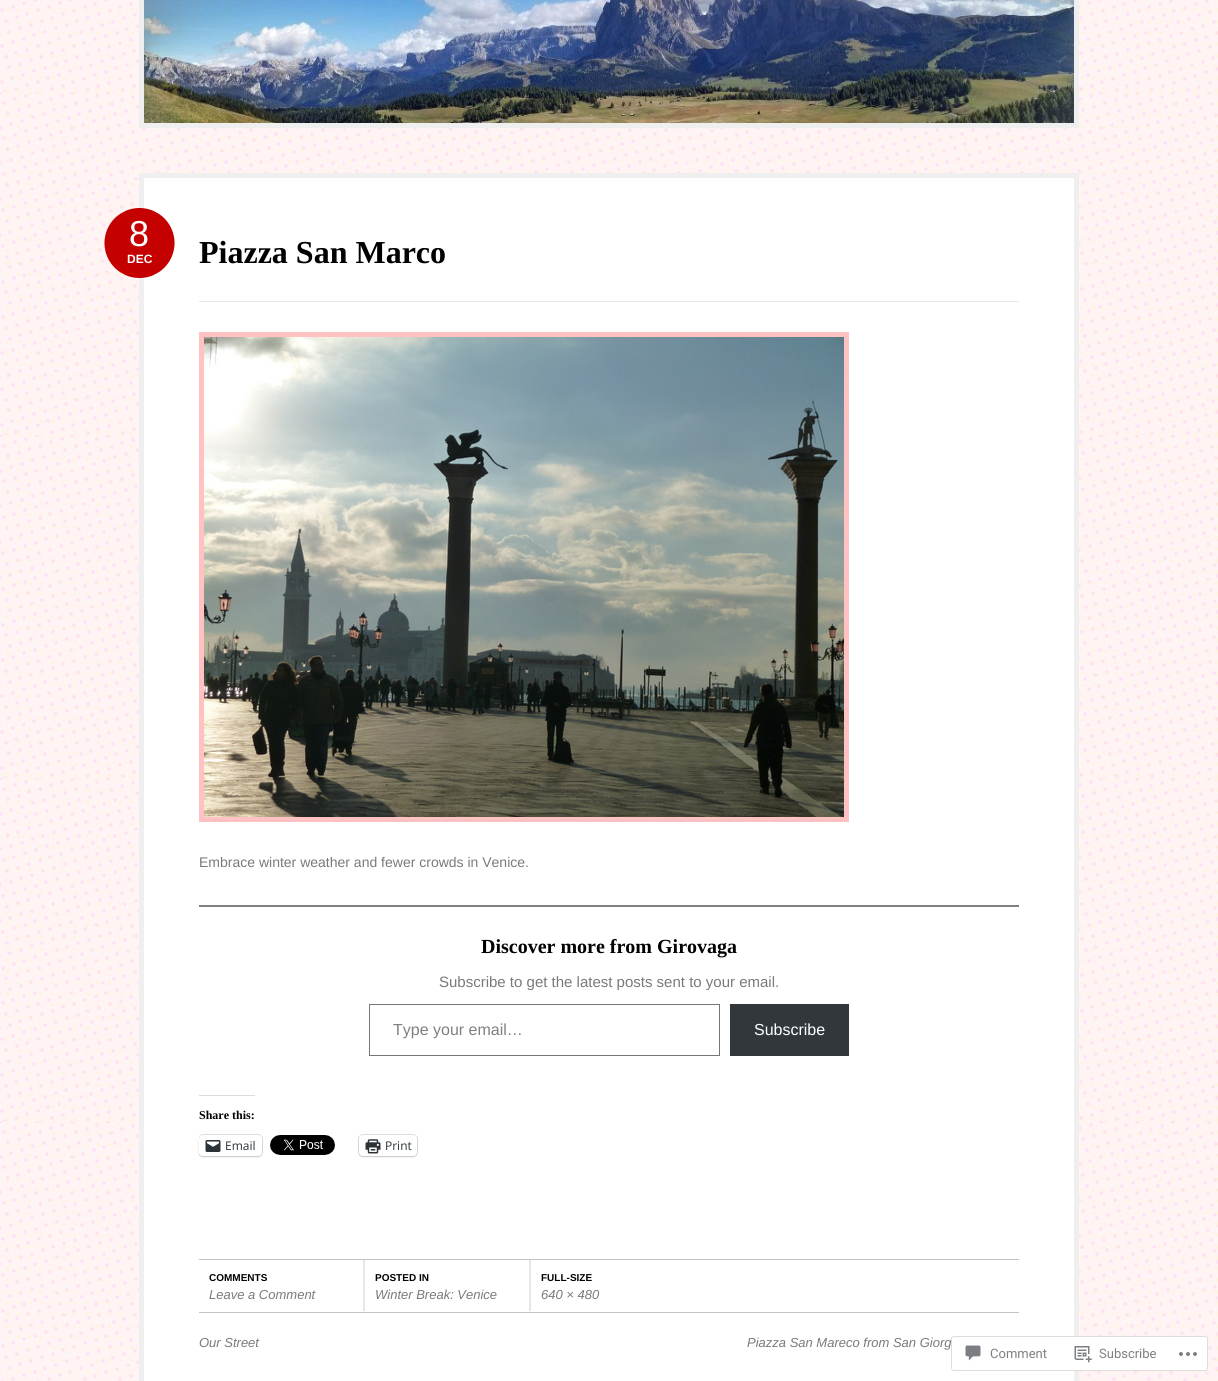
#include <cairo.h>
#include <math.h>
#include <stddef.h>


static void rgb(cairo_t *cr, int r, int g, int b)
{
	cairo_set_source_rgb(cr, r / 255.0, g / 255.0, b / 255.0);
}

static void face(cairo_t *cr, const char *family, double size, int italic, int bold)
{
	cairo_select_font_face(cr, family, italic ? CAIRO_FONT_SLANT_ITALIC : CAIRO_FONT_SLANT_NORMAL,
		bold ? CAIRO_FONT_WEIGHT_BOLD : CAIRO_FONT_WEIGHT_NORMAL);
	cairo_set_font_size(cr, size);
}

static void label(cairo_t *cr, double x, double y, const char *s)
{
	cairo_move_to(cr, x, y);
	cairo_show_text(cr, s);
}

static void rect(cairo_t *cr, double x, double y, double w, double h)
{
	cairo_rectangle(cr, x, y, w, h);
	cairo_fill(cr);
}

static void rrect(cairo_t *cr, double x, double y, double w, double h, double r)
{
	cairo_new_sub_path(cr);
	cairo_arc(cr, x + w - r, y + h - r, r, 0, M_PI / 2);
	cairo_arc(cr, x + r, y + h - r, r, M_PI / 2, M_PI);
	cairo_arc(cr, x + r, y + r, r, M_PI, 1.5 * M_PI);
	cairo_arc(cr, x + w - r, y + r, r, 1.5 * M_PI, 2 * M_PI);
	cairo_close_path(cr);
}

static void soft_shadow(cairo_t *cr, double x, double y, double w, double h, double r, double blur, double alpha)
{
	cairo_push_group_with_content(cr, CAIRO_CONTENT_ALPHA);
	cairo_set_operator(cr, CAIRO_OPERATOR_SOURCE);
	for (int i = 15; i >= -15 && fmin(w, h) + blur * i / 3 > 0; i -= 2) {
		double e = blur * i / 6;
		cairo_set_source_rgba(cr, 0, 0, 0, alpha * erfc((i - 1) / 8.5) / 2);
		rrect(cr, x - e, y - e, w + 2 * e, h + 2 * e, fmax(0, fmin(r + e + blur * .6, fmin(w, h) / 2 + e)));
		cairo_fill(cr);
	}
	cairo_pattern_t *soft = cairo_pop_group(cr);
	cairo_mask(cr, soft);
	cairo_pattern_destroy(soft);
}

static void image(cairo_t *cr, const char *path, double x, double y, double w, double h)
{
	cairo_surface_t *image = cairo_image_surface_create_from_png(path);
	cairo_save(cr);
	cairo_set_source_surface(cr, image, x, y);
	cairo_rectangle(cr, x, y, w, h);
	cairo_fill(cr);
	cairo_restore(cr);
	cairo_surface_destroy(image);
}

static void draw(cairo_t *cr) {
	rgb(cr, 255, 255, 255);
	cairo_paint(cr);
	image(cr, "image0.png", 0, 0, 1218, 1381);
	cairo_rectangle(cr, 141.5, -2.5, 935, 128);
	rgb(cr, 239, 239, 239);
	cairo_set_line_width(cr, 5);
	cairo_stroke(cr);
	image(cr, "image1.png", 144, 0, 930, 123);
	rgb(cr, 255, 255, 255);
	cairo_rectangle(cr, 141.5, 175.5, 935, 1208);
	cairo_fill_preserve(cr);
	rgb(cr, 239, 239, 239);
	cairo_stroke(cr);
	image(cr, "image2.png", 104, 208, 71, 70);
	face(cr, "Arimo", 36, 0, 0);
	rgb(cr, 255, 255, 255);
	label(cr, 129, 246, "8");
	face(cr, "Arimo", 12, 0, 1);
	label(cr, 127, 263, "DEC");
	rgb(cr, 231, 231, 231);
	rect(cr, 199, 301, 820, 1);
	face(cr, "Liberation Serif", 32, 0, 1);
	rgb(cr, 0, 0, 0);
	label(cr, 199, 263, "Piazza San Marco");
	cairo_rectangle(cr, 201.5, 334.5, 645, 485);
	rgb(cr, 255, 193, 193);
	cairo_stroke(cr);
	image(cr, "image3.png", 204, 337, 640, 480);
	face(cr, "Arimo", 14, 0, 0);
	rgb(cr, 122, 122, 122);
	label(cr, 199, 867, "Embrace winter weather and fewer crowds in Venice.");
	rgb(cr, 128, 128, 128);
	rect(cr, 199, 905, 820, 2);
	face(cr, "Liberation Serif", 20, 0, 1);
	rgb(cr, 0, 0, 0);
	label(cr, 481, 953, "Discover more from Girovaga");
	face(cr, "Arimo", 15, 0, 0);
	rgb(cr, 122, 122, 122);
	label(cr, 439, 987, "Subscribe to get the latest posts sent to your email.");
	cairo_rectangle(cr, 369.5, 1004.5, 350, 51);
	rgb(cr, 118, 118, 118);
	cairo_set_line_width(cr, 1);
	cairo_stroke(cr);
	face(cr, "Liberation Sans", 16, 0, 0);
	rgb(cr, 128, 128, 128);
	label(cr, 393, 1035, "Type your email…");
	rgb(cr, 50, 55, 60);
	rect(cr, 730, 1004, 119, 52);
	rgb(cr, 255, 255, 255);
	label(cr, 754, 1035, "Subscribe");
	rgb(cr, 220, 220, 222);
	rect(cr, 199, 1095, 56, 1);
	face(cr, "Liberation Serif", 12, 0, 1);
	rgb(cr, 0, 0, 0);
	label(cr, 199, 1119, "Share this:");
	cairo_save(cr);
	cairo_rectangle(cr, 199, 332, 820, 897);
	cairo_clip(cr);
	rrect(cr, 198.5, 1134.5, 64, 22, 4.5);
	rgb(cr, 224, 224, 224);
	cairo_stroke(cr);
	cairo_restore(cr);
	rgb(cr, 0, 0, 0);
	soft_shadow(cr, 199, 1136, 63, 21, 4, 1, 0.12);
	rgb(cr, 255, 255, 255);
	rrect(cr, 199, 1135, 63, 21, 4);
	cairo_fill(cr);
	image(cr, "image4.png", 205, 1140, 16, 12);
	face(cr, "Open Sans", 12, 0, 0);
	rgb(cr, 44, 51, 56);
	label(cr, 225, 1150, "Email");
	image(cr, "image5.png", 270, 1135, 65, 20);
	rrect(cr, 358.5, 1134.5, 59, 22, 4.5);
	rgb(cr, 224, 224, 224);
	cairo_stroke(cr);
	rgb(cr, 0, 0, 0);
	soft_shadow(cr, 359, 1136, 58, 21, 4, 1, 0.12);
	rgb(cr, 255, 255, 255);
	rrect(cr, 359, 1135, 58, 21, 4);
	cairo_fill(cr);
	image(cr, "image6.png", 365, 1139, 16, 15);
	rgb(cr, 44, 51, 56);
	label(cr, 385, 1150, "Print");
	rgb(cr, 196, 196, 196);
	rect(cr, 199, 1259, 820, 1);
	rect(cr, 199, 1312, 820, 1);
	rgb(cr, 231, 231, 231);
	rect(cr, 363, 1260, 2, 51);
	face(cr, "Liberation Sans", 10, 0, 1);
	rgb(cr, 0, 0, 0);
	label(cr, 209, 1281, "COMMENTS");
	face(cr, "Arimo", 13, 1, 0);
	rgb(cr, 122, 122, 122);
	label(cr, 209, 1299, "Leave a Comment");
	rgb(cr, 231, 231, 231);
	rect(cr, 529, 1260, 2, 51);
	face(cr, "Liberation Sans", 10, 0, 1);
	rgb(cr, 0, 0, 0);
	label(cr, 375, 1281, "POSTED IN");
	face(cr, "Arimo", 13, 1, 0);
	rgb(cr, 122, 122, 122);
	label(cr, 375, 1299, "Winter Break: Venice");
	face(cr, "Liberation Sans", 10, 0, 1);
	rgb(cr, 0, 0, 0);
	label(cr, 541, 1281, "FULL-SIZE");
	face(cr, "Arimo", 13, 1, 0);
	rgb(cr, 122, 122, 122);
	label(cr, 541, 1299, "640 × 480");
	label(cr, 199, 1347, "Our Street");
	label(cr, 747, 1347, "Piazza San Mareco from San Giorg");
	cairo_set_source_rgba(cr, 1, 1, 1, 0.98);
	rrect(cr, 951, 1336, 257, 35, 3);
	cairo_fill(cr);
	rrect(cr, 951.5, 1336.5, 256, 34, 2.5);
	cairo_set_source_rgba(cr, 0.863, 0.863, 0.871, 0.98);
	cairo_stroke(cr);
	image(cr, "image7.png", 965, 1345, 16, 16);
	face(cr, "Roboto", 13, 0, 0);
	rgb(cr, 128, 128, 128);
	label(cr, 990, 1358, "Comment");
	image(cr, "image8.png", 1074, 1346, 18, 17);
	label(cr, 1099, 1358, "Subscribe");
	image(cr, "image9.png", 1179, 1352, 18, 4);
}

int main(void) {
	cairo_surface_t *surface = cairo_image_surface_create(CAIRO_FORMAT_RGB24, 1218, 1381);
	cairo_t *cr = cairo_create(surface);
	cairo_font_options_t *options = cairo_font_options_create();
	cairo_font_options_set_hint_metrics(options, CAIRO_HINT_METRICS_OFF);
	cairo_font_options_set_hint_style(options, CAIRO_HINT_STYLE_NONE);
	cairo_set_font_options(cr, options);
	cairo_set_miter_limit(cr, 4);
	draw(cr);
	cairo_surface_write_to_png(surface, "render.png");
	cairo_font_options_destroy(options);
	cairo_destroy(cr);
	cairo_surface_destroy(surface);
	return 0;
}
